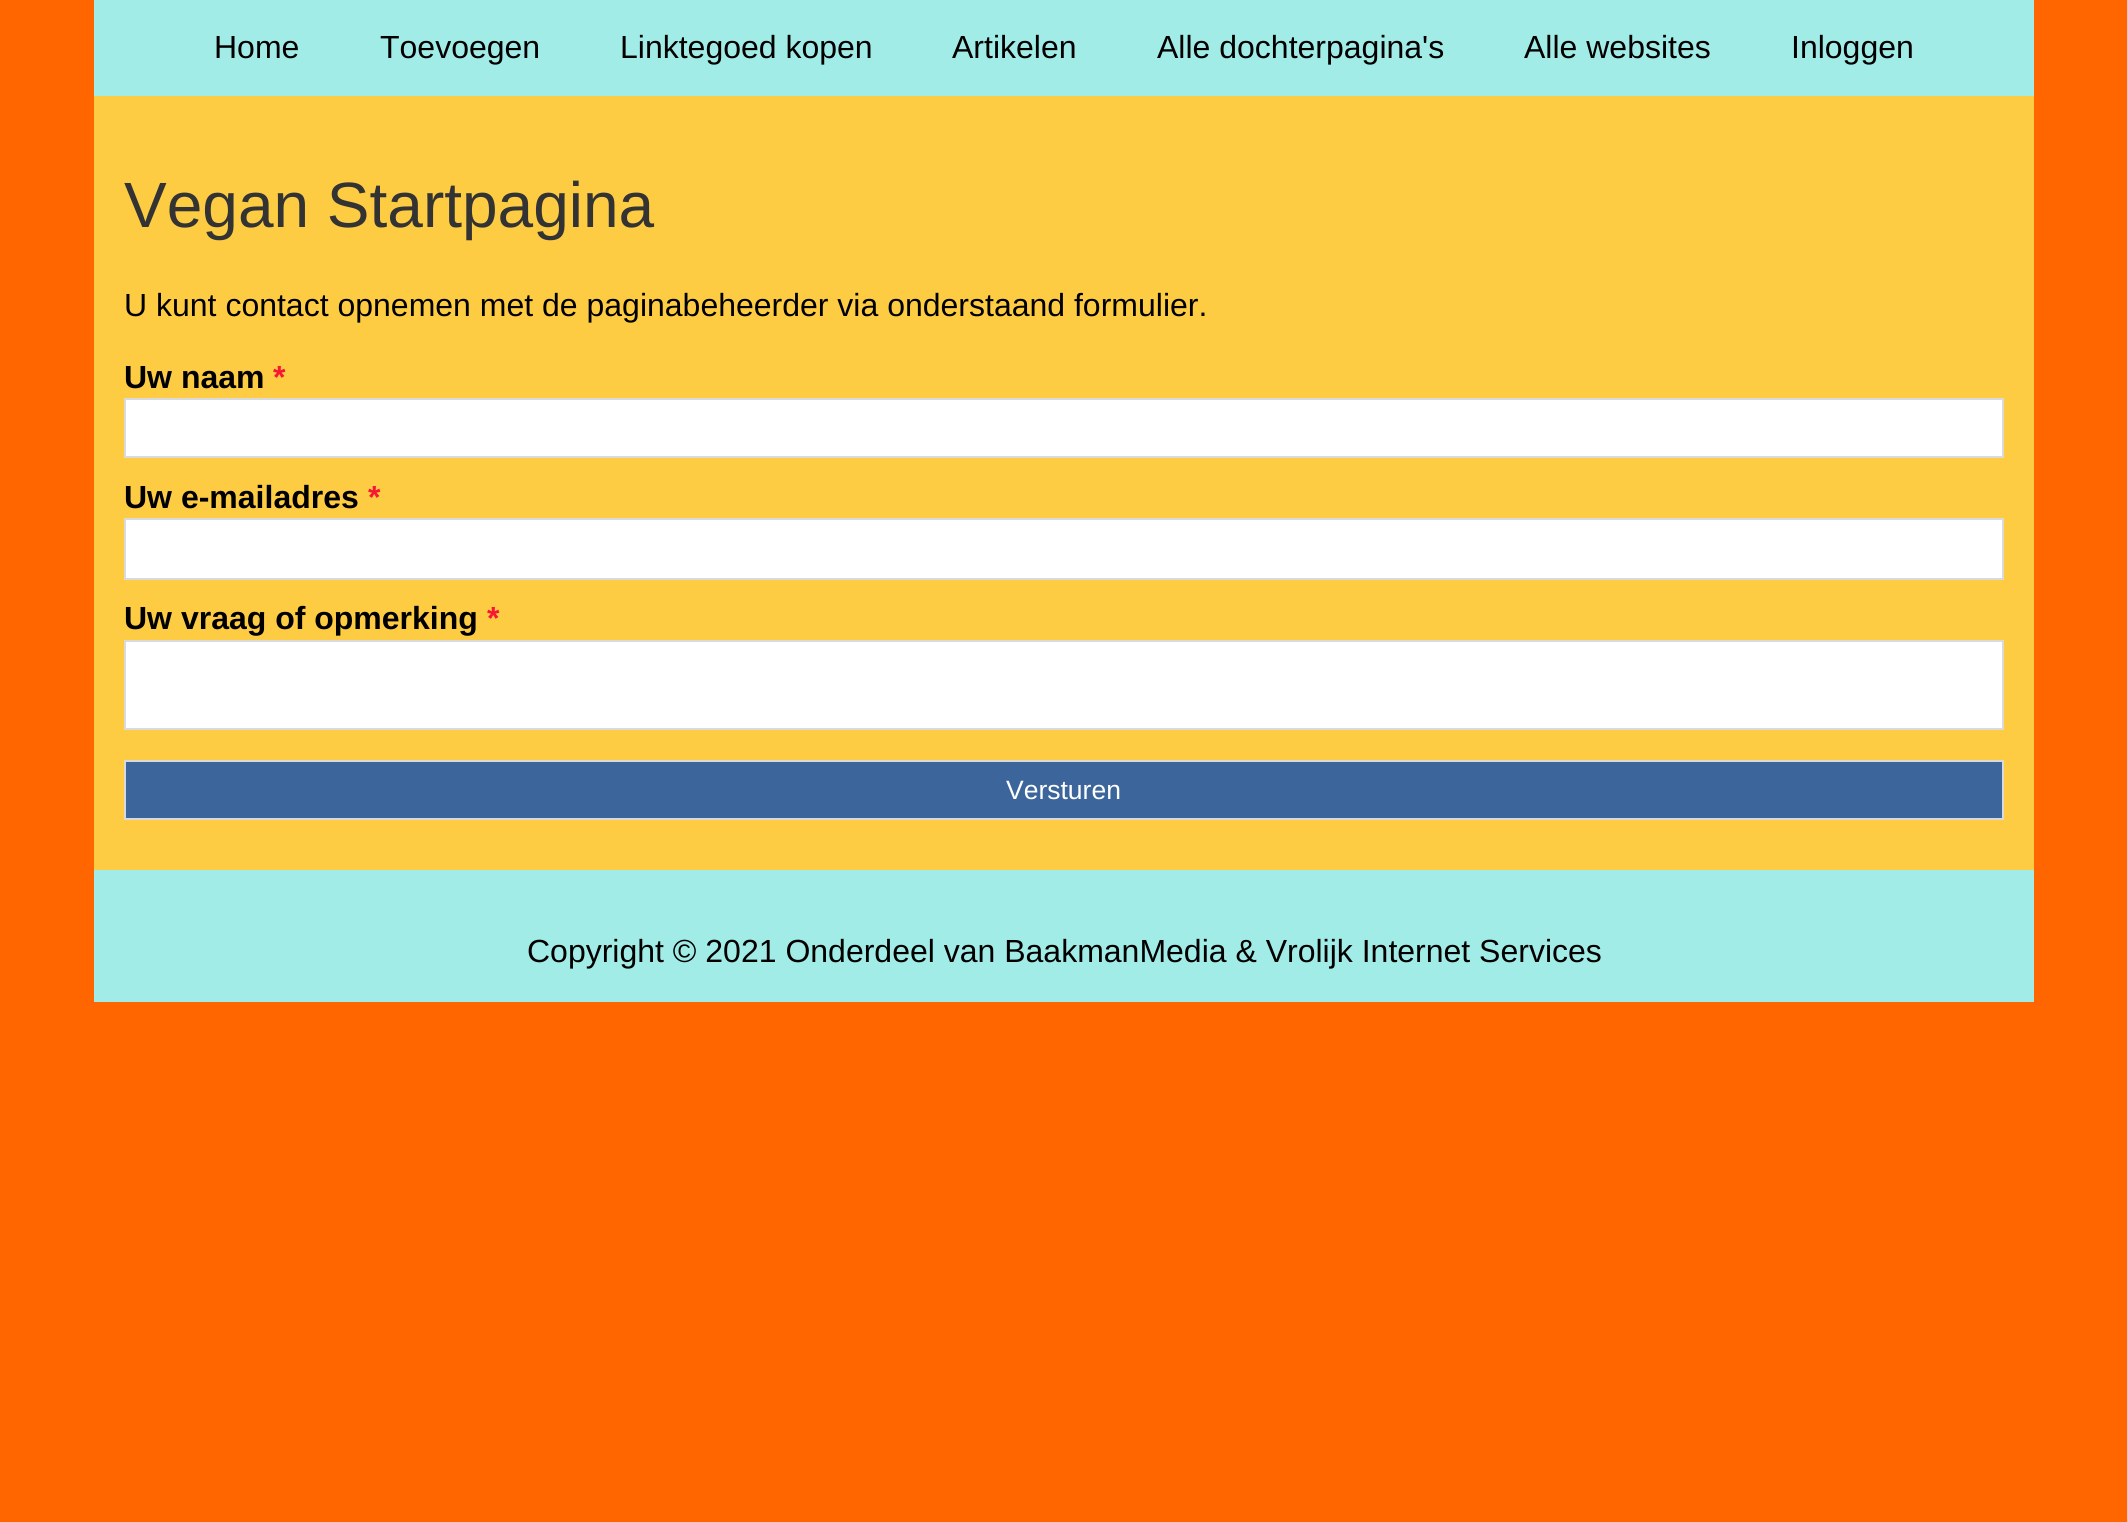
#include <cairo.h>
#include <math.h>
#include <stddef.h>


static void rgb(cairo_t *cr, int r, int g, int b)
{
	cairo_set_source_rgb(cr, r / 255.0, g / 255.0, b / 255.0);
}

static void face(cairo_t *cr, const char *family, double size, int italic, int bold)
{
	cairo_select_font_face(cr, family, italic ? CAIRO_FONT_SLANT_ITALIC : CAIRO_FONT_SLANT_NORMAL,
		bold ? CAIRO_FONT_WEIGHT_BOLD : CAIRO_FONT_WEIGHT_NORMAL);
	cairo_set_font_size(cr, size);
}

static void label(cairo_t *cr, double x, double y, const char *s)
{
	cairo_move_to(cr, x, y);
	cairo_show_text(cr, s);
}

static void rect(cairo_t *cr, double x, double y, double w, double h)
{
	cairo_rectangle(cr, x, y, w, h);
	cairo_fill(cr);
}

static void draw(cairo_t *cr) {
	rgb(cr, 255, 102, 0);
	cairo_paint(cr);
	rgb(cr, 162, 236, 231);
	rect(cr, 94, 0, 1940, 96);
	face(cr, "Liberation Sans", 32, 0, 0);
	rgb(cr, 0, 0, 0);
	label(cr, 214, 58, "Home");
	label(cr, 380, 58, "Toevoegen");
	label(cr, 620, 58, "Linktegoed kopen");
	label(cr, 952, 58, "Artikelen");
	label(cr, 1157, 58, "Alle dochterpagina's");
	label(cr, 1524, 58, "Alle websites");
	label(cr, 1791, 58, "Inloggen");
	rgb(cr, 254, 204, 67);
	rect(cr, 94, 96, 1940, 774);
	face(cr, "Liberation Sans", 64, 0, 0);
	rgb(cr, 51, 51, 51);
	label(cr, 124, 227, "Vegan Startpagina");
	face(cr, "Liberation Sans", 32, 0, 0);
	rgb(cr, 0, 0, 0);
	label(cr, 124, 316, "U kunt contact opnemen met de paginabeheerder via onderstaand formulier.");
	face(cr, "Liberation Sans", 32, 0, 1);
	label(cr, 124, 388, "Uw naam");
	rgb(cr, 247, 23, 53);
	label(cr, 273, 388, "*");
	rgb(cr, 255, 255, 255);
	cairo_rectangle(cr, 125, 399, 1878, 58);
	cairo_fill_preserve(cr);
	rgb(cr, 218, 218, 218);
	cairo_stroke(cr);
	rgb(cr, 0, 0, 0);
	label(cr, 124, 508, "Uw e-mailadres");
	rgb(cr, 247, 23, 53);
	label(cr, 368, 508, "*");
	rgb(cr, 255, 255, 255);
	cairo_rectangle(cr, 125, 519, 1878, 60);
	cairo_fill_preserve(cr);
	rgb(cr, 218, 218, 218);
	cairo_stroke(cr);
	rgb(cr, 0, 0, 0);
	label(cr, 124, 629, "Uw vraag of opmerking");
	rgb(cr, 247, 23, 53);
	label(cr, 487, 629, "*");
	rgb(cr, 255, 255, 255);
	cairo_rectangle(cr, 125, 641, 1878, 88);
	cairo_fill_preserve(cr);
	rgb(cr, 218, 218, 218);
	cairo_stroke(cr);
	rgb(cr, 59, 101, 155);
	cairo_rectangle(cr, 125, 761, 1878, 58);
	cairo_fill_preserve(cr);
	rgb(cr, 218, 218, 218);
	cairo_stroke(cr);
	face(cr, "Liberation Sans", 26.5, 0, 0);
	rgb(cr, 255, 255, 255);
	label(cr, 1006, 799, "Versturen");
	rgb(cr, 162, 236, 231);
	rect(cr, 94, 870, 1940, 132);
	face(cr, "Liberation Sans", 32, 0, 0);
	rgb(cr, 0, 0, 0);
	label(cr, 527, 962, "Copyright © 2021 Onderdeel van BaakmanMedia & Vrolijk Internet Services");
}

int main(void) {
	cairo_surface_t *surface = cairo_image_surface_create(CAIRO_FORMAT_RGB24, 2127, 1522);
	cairo_t *cr = cairo_create(surface);
	cairo_font_options_t *options = cairo_font_options_create();
	cairo_font_options_set_hint_metrics(options, CAIRO_HINT_METRICS_OFF);
	cairo_font_options_set_hint_style(options, CAIRO_HINT_STYLE_NONE);
	cairo_set_font_options(cr, options);
	cairo_set_miter_limit(cr, 4);
	draw(cr);
	cairo_surface_write_to_png(surface, "render.png");
	cairo_font_options_destroy(options);
	cairo_destroy(cr);
	cairo_surface_destroy(surface);
	return 0;
}
